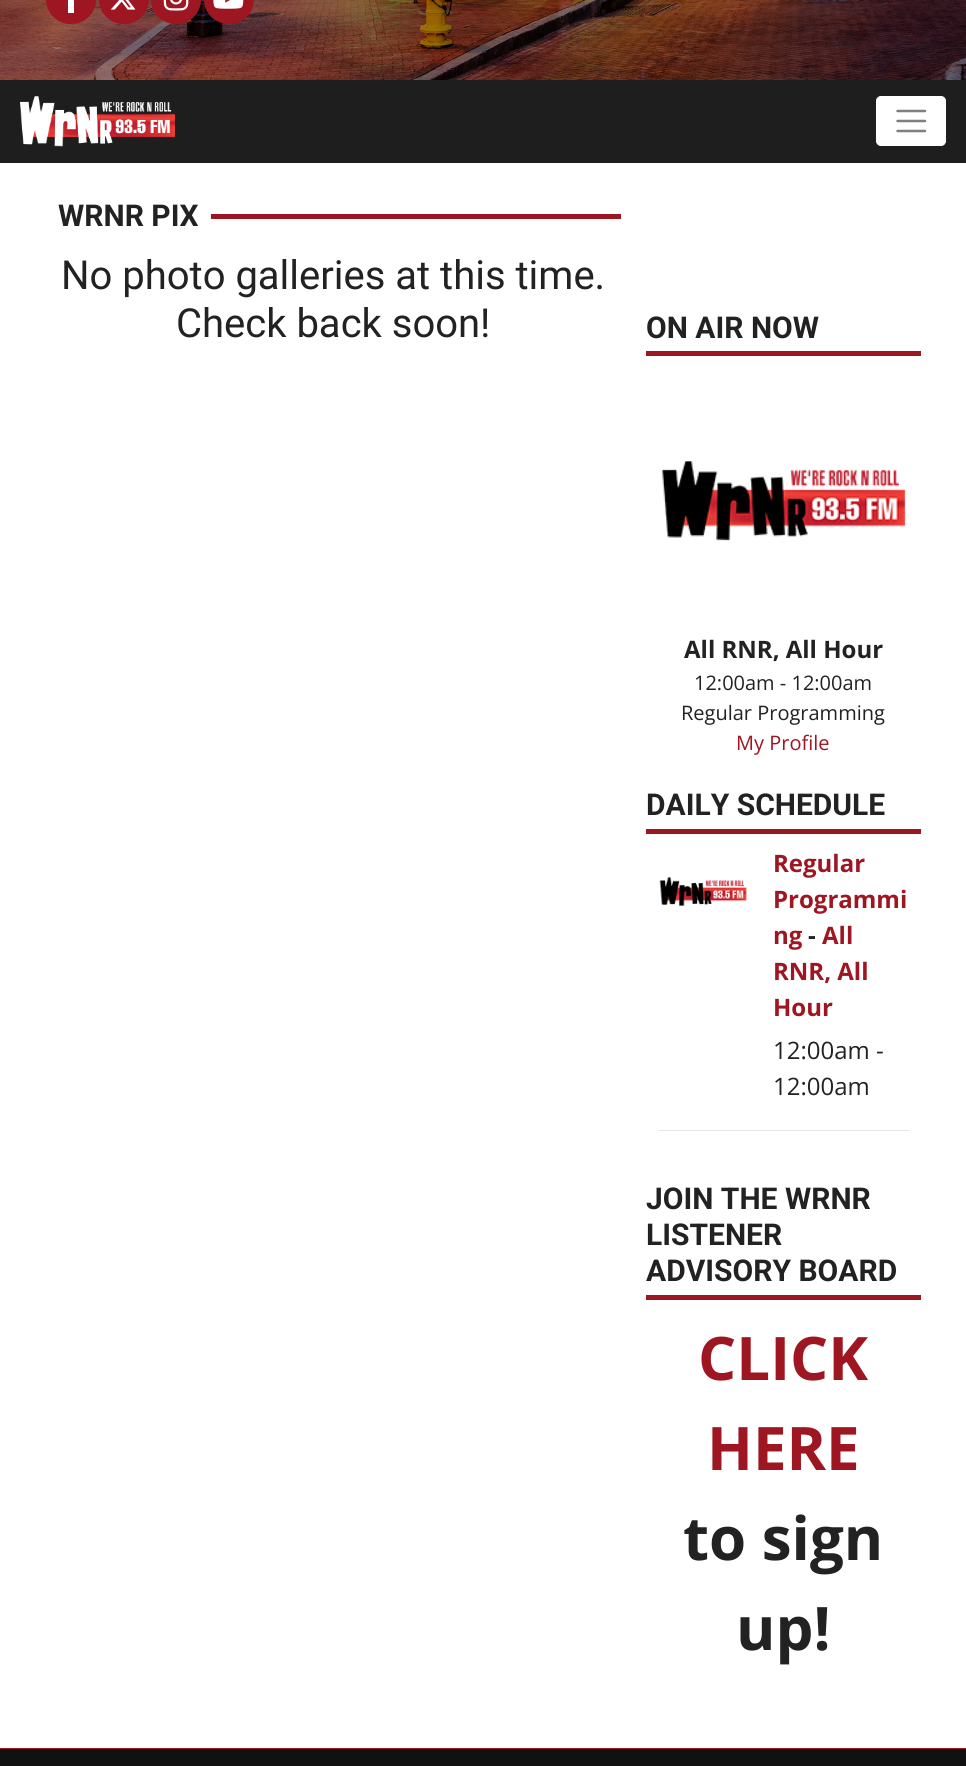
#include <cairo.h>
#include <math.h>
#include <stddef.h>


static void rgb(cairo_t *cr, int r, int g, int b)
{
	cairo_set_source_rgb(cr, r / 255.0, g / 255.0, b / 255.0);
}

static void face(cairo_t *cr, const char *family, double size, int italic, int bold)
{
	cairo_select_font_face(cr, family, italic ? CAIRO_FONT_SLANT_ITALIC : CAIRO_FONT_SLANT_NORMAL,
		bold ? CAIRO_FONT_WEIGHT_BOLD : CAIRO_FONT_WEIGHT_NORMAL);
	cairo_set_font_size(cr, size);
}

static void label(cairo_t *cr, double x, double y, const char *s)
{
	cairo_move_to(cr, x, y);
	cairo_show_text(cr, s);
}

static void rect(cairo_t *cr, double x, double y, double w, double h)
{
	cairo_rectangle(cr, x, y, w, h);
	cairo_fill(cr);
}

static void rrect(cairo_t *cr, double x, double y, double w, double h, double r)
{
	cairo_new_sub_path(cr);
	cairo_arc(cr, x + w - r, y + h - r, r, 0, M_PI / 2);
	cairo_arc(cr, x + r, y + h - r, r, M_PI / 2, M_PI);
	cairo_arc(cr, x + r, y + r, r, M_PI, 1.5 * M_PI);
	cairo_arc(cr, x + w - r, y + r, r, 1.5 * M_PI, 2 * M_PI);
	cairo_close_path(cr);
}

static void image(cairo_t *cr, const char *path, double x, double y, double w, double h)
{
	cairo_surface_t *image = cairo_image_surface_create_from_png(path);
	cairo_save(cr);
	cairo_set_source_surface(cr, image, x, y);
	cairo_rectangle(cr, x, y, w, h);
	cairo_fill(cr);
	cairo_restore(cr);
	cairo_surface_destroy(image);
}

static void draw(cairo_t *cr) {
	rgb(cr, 255, 255, 255);
	cairo_paint(cr);
	image(cr, "image0.png", 0, 0, 966, 80);
	rgb(cr, 158, 22, 33);
	rrect(cr, 46, -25, 50, 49, 24.5);
	cairo_fill(cr);
	rgb(cr, 255, 255, 255);
	rect(cr, 68, 0, 6, 13);
	rgb(cr, 158, 22, 33);
	rrect(cr, 99, -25, 50, 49, 24.5);
	cairo_fill(cr);
	image(cr, "image1.png", 110, 0, 26, 10);
	rrect(cr, 151, -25, 50, 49, 24.5);
	cairo_fill(cr);
	image(cr, "image2.png", 163, 0, 26, 11);
	rrect(cr, 204, -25, 50, 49, 24.5);
	cairo_fill(cr);
	image(cr, "image3.png", 213, 0, 31, 9);
	rgb(cr, 30, 30, 30);
	rect(cr, 0, 80, 966, 83);
	image(cr, "image4.png", 20, 96, 155, 51);
	rgb(cr, 255, 255, 255);
	rrect(cr, 876.5, 96.5, 69, 49, 4.5);
	cairo_fill_preserve(cr);
	cairo_set_line_width(cr, 1);
	cairo_stroke(cr);
	cairo_new_path(cr);
	cairo_move_to(cr, 897.5, 111);
	cairo_line_to(cr, 925, 111);
	cairo_move_to(cr, 897.5, 121);
	cairo_line_to(cr, 925, 121);
	cairo_move_to(cr, 897.5, 131);
	cairo_line_to(cr, 925, 131);
	rgb(cr, 128, 128, 128);
	cairo_set_line_width(cr, 2.5);
	cairo_set_line_cap(cr, CAIRO_LINE_CAP_ROUND);
	cairo_stroke(cr);
	face(cr, "Roboto", 30, 0, 1);
	rgb(cr, 34, 34, 34);
	label(cr, 58, 226, "WRNR PIX");
	rgb(cr, 158, 22, 33);
	rect(cr, 211, 214, 410, 5);
	face(cr, "Roboto", 40, 0, 0);
	rgb(cr, 34, 34, 34);
	label(cr, 61, 289, "No photo galleries at this time.");
	label(cr, 176, 337, "Check back soon!");
	rgb(cr, 158, 22, 33);
	rect(cr, 646, 351, 275, 5);
	face(cr, "Roboto", 30, 0, 1);
	rgb(cr, 34, 34, 34);
	label(cr, 646, 338, "ON AIR NOW");
	image(cr, "image5.png", 662, 461, 244, 80);
	face(cr, "Open Sans", 24, 0, 1);
	label(cr, 684, 658, "All RNR, All Hour");
	face(cr, "Open Sans", 20, 0, 0);
	label(cr, 694, 690, "12:00am - 12:00am");
	label(cr, 681, 720, "Regular Programming");
	rgb(cr, 158, 22, 33);
	label(cr, 736, 750, "My Profile");
	rect(cr, 646, 829, 275, 5);
	face(cr, "Roboto", 30, 0, 1);
	rgb(cr, 34, 34, 34);
	label(cr, 646, 815, "DAILY SCHEDULE");
	image(cr, "image6.png", 659, 876, 88, 30);
	face(cr, "Open Sans", 24, 0, 1);
	rgb(cr, 158, 22, 33);
	label(cr, 773, 872, "Regular");
	label(cr, 773, 908, "Programmi");
	label(cr, 773, 944, "ng");
	rgb(cr, 34, 34, 34);
	label(cr, 808, 944, "-");
	rgb(cr, 158, 22, 33);
	label(cr, 822, 944, "All");
	label(cr, 773, 980, "RNR, All");
	label(cr, 773, 1016, "Hour");
	face(cr, "Open Sans", 24, 0, 0);
	rgb(cr, 34, 34, 34);
	label(cr, 773, 1059, "12:00am -");
	label(cr, 773, 1095, "12:00am");
	rgb(cr, 230, 230, 230);
	rect(cr, 659, 1130, 250, 1);
	rgb(cr, 158, 22, 33);
	rect(cr, 646, 1295, 275, 5);
	face(cr, "Roboto", 30, 0, 1);
	rgb(cr, 34, 34, 34);
	label(cr, 646, 1209, "JOIN THE WRNR");
	label(cr, 646, 1245, "LISTENER");
	label(cr, 646, 1281, "ADVISORY BOARD");
	face(cr, "Open Sans", 60, 0, 1);
	rgb(cr, 158, 22, 33);
	label(cr, 698, 1380, "CLICK");
	label(cr, 707, 1470, "HERE");
	rgb(cr, 34, 34, 34);
	label(cr, 683, 1560, "to sign");
	label(cr, 736, 1650, "up!");
	rgb(cr, 17, 17, 17);
	rect(cr, 0, 1749, 966, 17);
	rgb(cr, 158, 22, 33);
	rect(cr, 0, 1748, 966, 1);
}

int main(void) {
	cairo_surface_t *surface = cairo_image_surface_create(CAIRO_FORMAT_RGB24, 966, 1766);
	cairo_t *cr = cairo_create(surface);
	cairo_font_options_t *options = cairo_font_options_create();
	cairo_font_options_set_hint_metrics(options, CAIRO_HINT_METRICS_OFF);
	cairo_font_options_set_hint_style(options, CAIRO_HINT_STYLE_NONE);
	cairo_set_font_options(cr, options);
	cairo_set_miter_limit(cr, 4);
	draw(cr);
	cairo_surface_write_to_png(surface, "render.png");
	cairo_font_options_destroy(options);
	cairo_destroy(cr);
	cairo_surface_destroy(surface);
	return 0;
}
